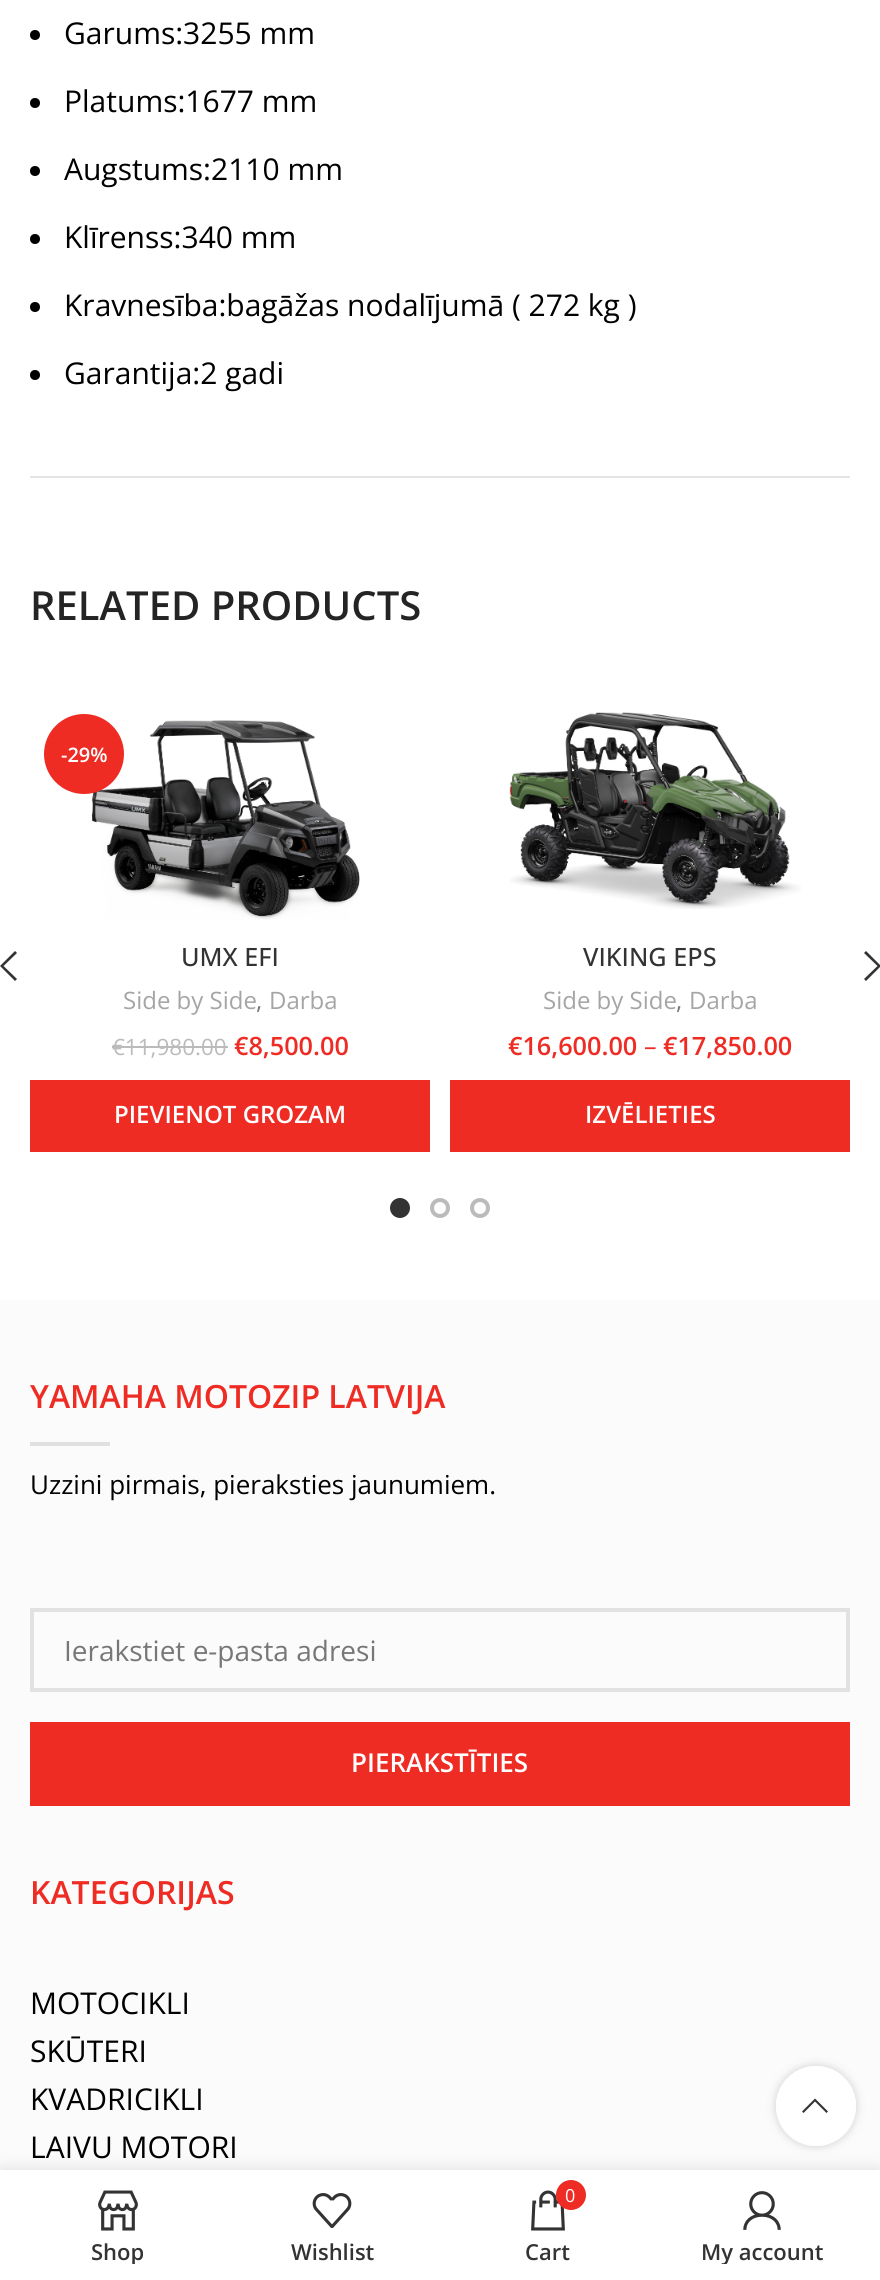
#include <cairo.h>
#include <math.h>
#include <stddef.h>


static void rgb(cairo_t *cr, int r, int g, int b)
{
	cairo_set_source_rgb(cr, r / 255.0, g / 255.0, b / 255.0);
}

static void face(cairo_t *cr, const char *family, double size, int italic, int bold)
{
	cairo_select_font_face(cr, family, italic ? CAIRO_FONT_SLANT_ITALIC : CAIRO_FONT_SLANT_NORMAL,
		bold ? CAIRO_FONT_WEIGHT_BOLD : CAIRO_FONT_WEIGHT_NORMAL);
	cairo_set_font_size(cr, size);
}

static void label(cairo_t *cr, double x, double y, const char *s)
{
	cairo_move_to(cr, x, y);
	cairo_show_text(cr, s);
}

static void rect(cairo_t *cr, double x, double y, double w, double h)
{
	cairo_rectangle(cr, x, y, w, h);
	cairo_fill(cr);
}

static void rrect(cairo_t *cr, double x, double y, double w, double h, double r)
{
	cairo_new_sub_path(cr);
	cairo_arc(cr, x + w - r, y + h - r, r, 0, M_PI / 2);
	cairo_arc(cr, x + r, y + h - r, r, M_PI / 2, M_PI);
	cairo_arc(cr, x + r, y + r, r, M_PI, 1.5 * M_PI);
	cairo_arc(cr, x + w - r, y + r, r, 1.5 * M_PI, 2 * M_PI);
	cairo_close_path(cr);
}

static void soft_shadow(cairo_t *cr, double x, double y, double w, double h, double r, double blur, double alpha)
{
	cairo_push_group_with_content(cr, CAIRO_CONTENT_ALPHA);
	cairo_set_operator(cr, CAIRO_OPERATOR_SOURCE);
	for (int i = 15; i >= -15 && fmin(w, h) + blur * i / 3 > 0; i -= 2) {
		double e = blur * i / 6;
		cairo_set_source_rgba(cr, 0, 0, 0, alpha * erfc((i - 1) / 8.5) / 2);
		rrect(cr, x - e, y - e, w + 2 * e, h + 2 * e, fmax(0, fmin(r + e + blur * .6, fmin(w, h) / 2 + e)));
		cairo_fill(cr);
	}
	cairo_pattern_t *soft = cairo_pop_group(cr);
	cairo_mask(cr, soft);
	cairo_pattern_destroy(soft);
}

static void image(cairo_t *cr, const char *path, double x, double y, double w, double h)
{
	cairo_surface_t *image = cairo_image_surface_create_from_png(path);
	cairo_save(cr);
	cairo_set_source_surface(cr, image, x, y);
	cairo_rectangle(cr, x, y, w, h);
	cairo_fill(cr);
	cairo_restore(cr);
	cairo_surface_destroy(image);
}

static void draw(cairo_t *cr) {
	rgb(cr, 255, 255, 255);
	cairo_paint(cr);
	rgb(cr, 228, 228, 228);
	rect(cr, 30, 476, 820, 2);
	rgb(cr, 0, 0, 0);
	cairo_arc(cr, 35, 35, 5, 0, 2 * M_PI);
	cairo_fill(cr);
	face(cr, "Open Sans", 30, 0, 0);
	label(cr, 64, 44, "Garums:3255 mm");
	cairo_new_path(cr);
	cairo_arc(cr, 35, 103, 5, 0, 2 * M_PI);
	cairo_fill(cr);
	label(cr, 64, 112, "Platums:1677 mm");
	cairo_new_path(cr);
	cairo_arc(cr, 35, 171, 5, 0, 2 * M_PI);
	cairo_fill(cr);
	label(cr, 64, 180, "Augstums:2110 mm");
	cairo_new_path(cr);
	cairo_arc(cr, 35, 239, 5, 0, 2 * M_PI);
	cairo_fill(cr);
	label(cr, 64, 248, "Klīrenss:340 mm");
	cairo_new_path(cr);
	cairo_arc(cr, 35, 307, 5, 0, 2 * M_PI);
	cairo_fill(cr);
	label(cr, 64, 316, "Kravnesība:bagāžas nodalījumā ( 272 kg )");
	cairo_new_path(cr);
	cairo_arc(cr, 35, 375, 5, 0, 2 * M_PI);
	cairo_fill(cr);
	label(cr, 64, 384, "Garantija:2 gadi");
	face(cr, "Open Sans SemiBold", 40, 0, 0);
	rgb(cr, 36, 36, 36);
	label(cr, 30, 620, "RELATED PRODUCTS");
	image(cr, "image0.png", 91, 720, 269, 200);
	rgb(cr, 238, 44, 36);
	cairo_arc(cr, 84, 754, 40, 0, 2 * M_PI);
	cairo_fill(cr);
	face(cr, "Open Sans SemiBold", 20, 0, 0);
	rgb(cr, 255, 255, 255);
	label(cr, 61, 762, "-29%");
	face(cr, "Open Sans Medium", 25.25, 0, 0);
	rgb(cr, 51, 51, 51);
	label(cr, 181, 966, "UMX EFI");
	face(cr, "Open Sans", 24, 0, 0);
	rgb(cr, 165, 165, 165);
	label(cr, 123, 1009, "Side by Side");
	rgb(cr, 119, 119, 119);
	label(cr, 256, 1009, ",");
	rgb(cr, 165, 165, 165);
	label(cr, 269, 1009, "Darba");
	face(cr, "Open Sans", 22.5, 0, 0);
	rgb(cr, 187, 187, 187);
	label(cr, 112, 1055, "€11,980.00");
	rect(cr, 112, 1046, 116, 2);
	face(cr, "Open Sans SemiBold", 25.25, 0, 0);
	rgb(cr, 238, 44, 36);
	label(cr, 234, 1055, "€8,500.00");
	rect(cr, 30, 1080, 400, 72);
	face(cr, "Open Sans SemiBold", 24, 0, 0);
	rgb(cr, 255, 255, 255);
	label(cr, 114, 1123, "PIEVIENOT GROZAM");
	image(cr, "image1.png", 509, 712, 292, 197);
	face(cr, "Open Sans Medium", 25.25, 0, 0);
	rgb(cr, 51, 51, 51);
	label(cr, 583, 966, "VIKING EPS");
	face(cr, "Open Sans", 24, 0, 0);
	rgb(cr, 165, 165, 165);
	label(cr, 543, 1009, "Side by Side");
	rgb(cr, 119, 119, 119);
	label(cr, 676, 1009, ",");
	rgb(cr, 165, 165, 165);
	label(cr, 689, 1009, "Darba");
	face(cr, "Open Sans SemiBold", 25.25, 0, 0);
	rgb(cr, 238, 44, 36);
	label(cr, 508, 1055, "€16,600.00");
	face(cr, "Open Sans", 25.25, 0, 0);
	label(cr, 644, 1055, "–");
	face(cr, "Open Sans SemiBold", 25.25, 0, 0);
	label(cr, 663, 1055, "€17,850.00");
	rect(cr, 450, 1080, 400, 72);
	face(cr, "Open Sans SemiBold", 24, 0, 0);
	rgb(cr, 255, 255, 255);
	label(cr, 585, 1123, "IZVĒLIETIES");
	rgb(cr, 51, 51, 51);
	cairo_new_path(cr);
	cairo_move_to(cr, 17, 953);
	cairo_line_to(cr, 15, 951);
	cairo_line_to(cr, 0, 966);
	cairo_line_to(cr, 15, 981);
	cairo_line_to(cr, 17, 979);
	cairo_line_to(cr, 3.5, 966);
	cairo_close_path(cr);
	cairo_fill(cr);
	cairo_new_path(cr);
	cairo_move_to(cr, 864, 953);
	cairo_line_to(cr, 877.5, 966);
	cairo_line_to(cr, 864, 979);
	cairo_line_to(cr, 866, 981);
	cairo_line_to(cr, 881, 966);
	cairo_line_to(cr, 866, 951);
	cairo_close_path(cr);
	cairo_fill(cr);
	cairo_arc(cr, 400, 1208, 8, 0, 2 * M_PI);
	cairo_fill_preserve(cr);
	cairo_set_line_width(cr, 4);
	cairo_stroke(cr);
	cairo_arc(cr, 440, 1208, 8, 0, 2 * M_PI);
	rgb(cr, 187, 187, 187);
	cairo_stroke(cr);
	cairo_arc(cr, 480, 1208, 8, 0, 2 * M_PI);
	cairo_stroke(cr);
	rgb(cr, 251, 251, 251);
	rect(cr, 0, 1300, 880, 870);
	face(cr, "Open Sans SemiBold", 32, 0, 0);
	rgb(cr, 238, 44, 36);
	label(cr, 30, 1408, "YAMAHA MOTOZIP LATVIJA");
	rgb(cr, 224, 224, 224);
	rect(cr, 30, 1442, 80, 4);
	face(cr, "Open Sans", 26, 0, 0);
	rgb(cr, 0, 0, 0);
	label(cr, 30, 1494, "Uzzini pirmais, pieraksties jaunumiem.");
	cairo_rectangle(cr, 32, 1610, 816, 80);
	rgb(cr, 226, 226, 226);
	cairo_stroke(cr);
	face(cr, "Open Sans", 28, 0, 0);
	rgb(cr, 119, 119, 119);
	label(cr, 64, 1661, "Ierakstiet e-pasta adresi");
	rgb(cr, 238, 44, 36);
	rect(cr, 30, 1722, 820, 84);
	face(cr, "Open Sans SemiBold", 26, 0, 0);
	rgb(cr, 255, 255, 255);
	label(cr, 351, 1772, "PIERAKSTĪTIES");
	face(cr, "Open Sans SemiBold", 32, 0, 0);
	rgb(cr, 238, 44, 36);
	label(cr, 30, 1904, "KATEGORIJAS");
	face(cr, "Open Sans", 30, 0, 0);
	rgb(cr, 0, 0, 0);
	label(cr, 30, 2014, "MOTOCIKLI");
	label(cr, 30, 2062, "SKŪTERI");
	label(cr, 30, 2110, "KVADRICIKLI");
	label(cr, 30, 2158, "LAIVU MOTORI");
	cairo_save(cr);
	cairo_set_fill_rule(cr, CAIRO_FILL_RULE_EVEN_ODD);
	cairo_new_path(cr);
	cairo_move_to(cr, 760, 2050);
	cairo_line_to(cr, 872, 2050);
	cairo_line_to(cr, 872, 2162);
	cairo_line_to(cr, 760, 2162);
	cairo_close_path(cr);
	cairo_move_to(cr, 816, 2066);
	cairo_curve_to(cr, 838, 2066, 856, 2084, 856, 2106);
	cairo_curve_to(cr, 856, 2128, 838, 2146, 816, 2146);
	cairo_curve_to(cr, 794, 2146, 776, 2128, 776, 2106);
	cairo_curve_to(cr, 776, 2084, 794, 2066, 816, 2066);
	cairo_close_path(cr);
	cairo_clip(cr);
	rgb(cr, 0, 0, 0);
	soft_shadow(cr, 776, 2066, 80, 80, 40, 5, 0.17);
	cairo_restore(cr);
	cairo_set_source_rgba(cr, 1, 1, 1, 0.9);
	cairo_arc(cr, 816, 2106, 40, 0, 2 * M_PI);
	cairo_fill(cr);
	rgb(cr, 51, 51, 51);
	cairo_new_path(cr);
	cairo_move_to(cr, 826.5, 2113);
	cairo_line_to(cr, 828, 2111.5);
	cairo_line_to(cr, 815, 2098.5);
	cairo_line_to(cr, 802, 2111.5);
	cairo_line_to(cr, 803.5, 2113);
	cairo_line_to(cr, 815, 2101.5);
	cairo_close_path(cr);
	cairo_fill(cr);
	rgb(cr, 0, 0, 0);
	soft_shadow(cr, 0, 2170, 880, 110, 0, 9, 0.12);
	rgb(cr, 255, 255, 255);
	rect(cr, 0, 2170, 880, 110);
	image(cr, "image2.png", 98, 2190, 40, 41);
	cairo_save(cr);
	cairo_rectangle(cr, 30, 2238, 176, 26);
	cairo_clip(cr);
	face(cr, "Open Sans SemiBold", 22, 0, 0);
	rgb(cr, 51, 51, 51);
	label(cr, 91, 2260, "Shop");
	cairo_restore(cr);
	image(cr, "image3.png", 312, 2193, 40, 35);
	face(cr, "Open Sans SemiBold", 22, 0, 0);
	rgb(cr, 51, 51, 51);
	label(cr, 291, 2260, "Wishlist");
	image(cr, "image4.png", 531, 2190, 34, 41);
	rgb(cr, 238, 44, 36);
	cairo_arc(cr, 571, 2195, 15, 0, 2 * M_PI);
	cairo_fill(cr);
	face(cr, "Open Sans", 18, 0, 0);
	rgb(cr, 255, 255, 255);
	label(cr, 565, 2202, "0");
	face(cr, "Open Sans SemiBold", 22, 0, 0);
	rgb(cr, 51, 51, 51);
	label(cr, 525, 2260, "Cart");
	image(cr, "image5.png", 743, 2191, 38, 39);
	cairo_save(cr);
	cairo_rectangle(cr, 676, 2238, 174, 26);
	cairo_clip(cr);
	label(cr, 701, 2260, "My account");
	cairo_restore(cr);
}

int main(void) {
	cairo_surface_t *surface = cairo_image_surface_create(CAIRO_FORMAT_RGB24, 880, 2280);
	cairo_t *cr = cairo_create(surface);
	cairo_font_options_t *options = cairo_font_options_create();
	cairo_font_options_set_hint_metrics(options, CAIRO_HINT_METRICS_OFF);
	cairo_font_options_set_hint_style(options, CAIRO_HINT_STYLE_NONE);
	cairo_set_font_options(cr, options);
	cairo_set_miter_limit(cr, 4);
	draw(cr);
	cairo_surface_write_to_png(surface, "render.png");
	cairo_font_options_destroy(options);
	cairo_destroy(cr);
	cairo_surface_destroy(surface);
	return 0;
}
